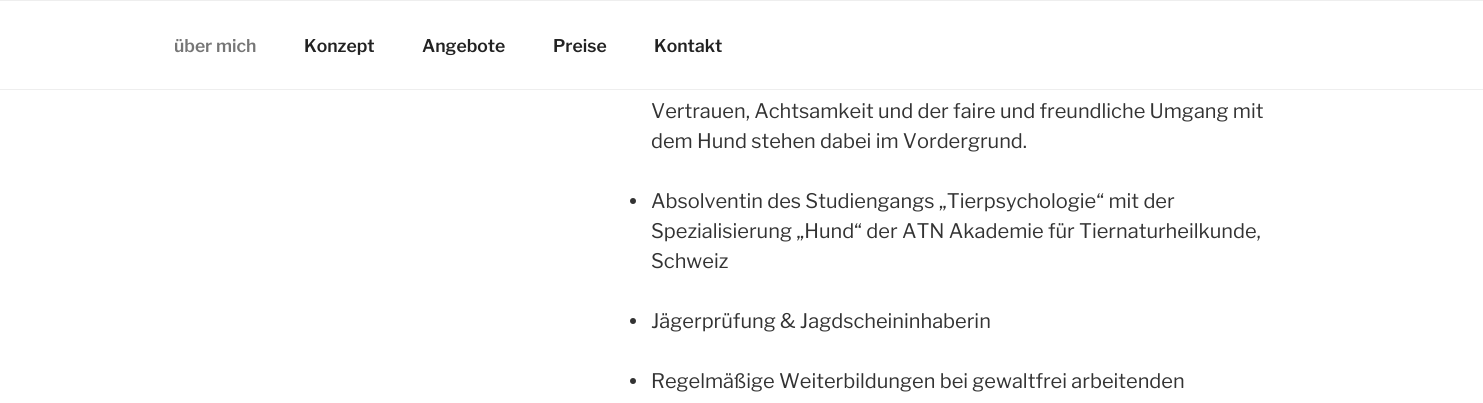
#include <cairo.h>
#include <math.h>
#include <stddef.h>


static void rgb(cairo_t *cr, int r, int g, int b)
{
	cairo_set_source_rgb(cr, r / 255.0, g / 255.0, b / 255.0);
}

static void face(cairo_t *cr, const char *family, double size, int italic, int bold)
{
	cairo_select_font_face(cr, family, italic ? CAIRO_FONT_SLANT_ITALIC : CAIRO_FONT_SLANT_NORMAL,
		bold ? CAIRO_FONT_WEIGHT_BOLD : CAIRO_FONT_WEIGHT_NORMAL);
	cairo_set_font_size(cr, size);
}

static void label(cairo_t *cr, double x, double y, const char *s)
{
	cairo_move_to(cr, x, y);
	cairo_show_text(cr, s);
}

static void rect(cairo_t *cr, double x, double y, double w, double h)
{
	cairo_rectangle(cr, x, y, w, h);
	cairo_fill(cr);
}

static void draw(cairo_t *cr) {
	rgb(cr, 255, 255, 255);
	cairo_paint(cr);
	rgb(cr, 238, 238, 238);
	rect(cr, 0, 0, 1483, 1);
	rect(cr, 0, 89, 1483, 1);
	face(cr, "Libre Franklin SemiBold", 17.5, 0, 0);
	rgb(cr, 118, 118, 118);
	label(cr, 174, 52, "über mich");
	rgb(cr, 34, 34, 34);
	label(cr, 304, 52, "Konzept");
	label(cr, 422, 52, "Angebote");
	label(cr, 553, 52, "Preise");
	label(cr, 654, 52, "Kontakt");
	face(cr, "Libre Franklin", 20, 0, 0);
	rgb(cr, 51, 51, 51);
	label(cr, 651, 118, "Vertrauen, Achtsamkeit und der faire und freundliche Umgang mit");
	label(cr, 651, 148, "dem Hund stehen dabei im Vordergrund.");
	cairo_new_path(cr);
	cairo_arc(cr, 633, 201, 3, 0, 2 * M_PI);
	cairo_fill(cr);
	label(cr, 651, 208, "Absolventin des Studiengangs „Tierpsychologie“ mit der");
	label(cr, 651, 238, "Spezialisierung „Hund“ der ATN Akademie für Tiernaturheilkunde,");
	label(cr, 651, 268, "Schweiz");
	cairo_new_path(cr);
	cairo_arc(cr, 633, 321, 3, 0, 2 * M_PI);
	cairo_fill(cr);
	label(cr, 651, 328, "Jägerprüfung & Jagdscheininhaberin");
	cairo_new_path(cr);
	cairo_arc(cr, 633, 381, 3, 0, 2 * M_PI);
	cairo_fill(cr);
	label(cr, 651, 388, "Regelmäßige Weiterbildungen bei gewaltfrei arbeitenden");
}

int main(void) {
	cairo_surface_t *surface = cairo_image_surface_create(CAIRO_FORMAT_RGB24, 1483, 403);
	cairo_t *cr = cairo_create(surface);
	cairo_font_options_t *options = cairo_font_options_create();
	cairo_font_options_set_hint_metrics(options, CAIRO_HINT_METRICS_OFF);
	cairo_font_options_set_hint_style(options, CAIRO_HINT_STYLE_NONE);
	cairo_set_font_options(cr, options);
	cairo_set_miter_limit(cr, 4);
	draw(cr);
	cairo_surface_write_to_png(surface, "render.png");
	cairo_font_options_destroy(options);
	cairo_destroy(cr);
	cairo_surface_destroy(surface);
	return 0;
}
